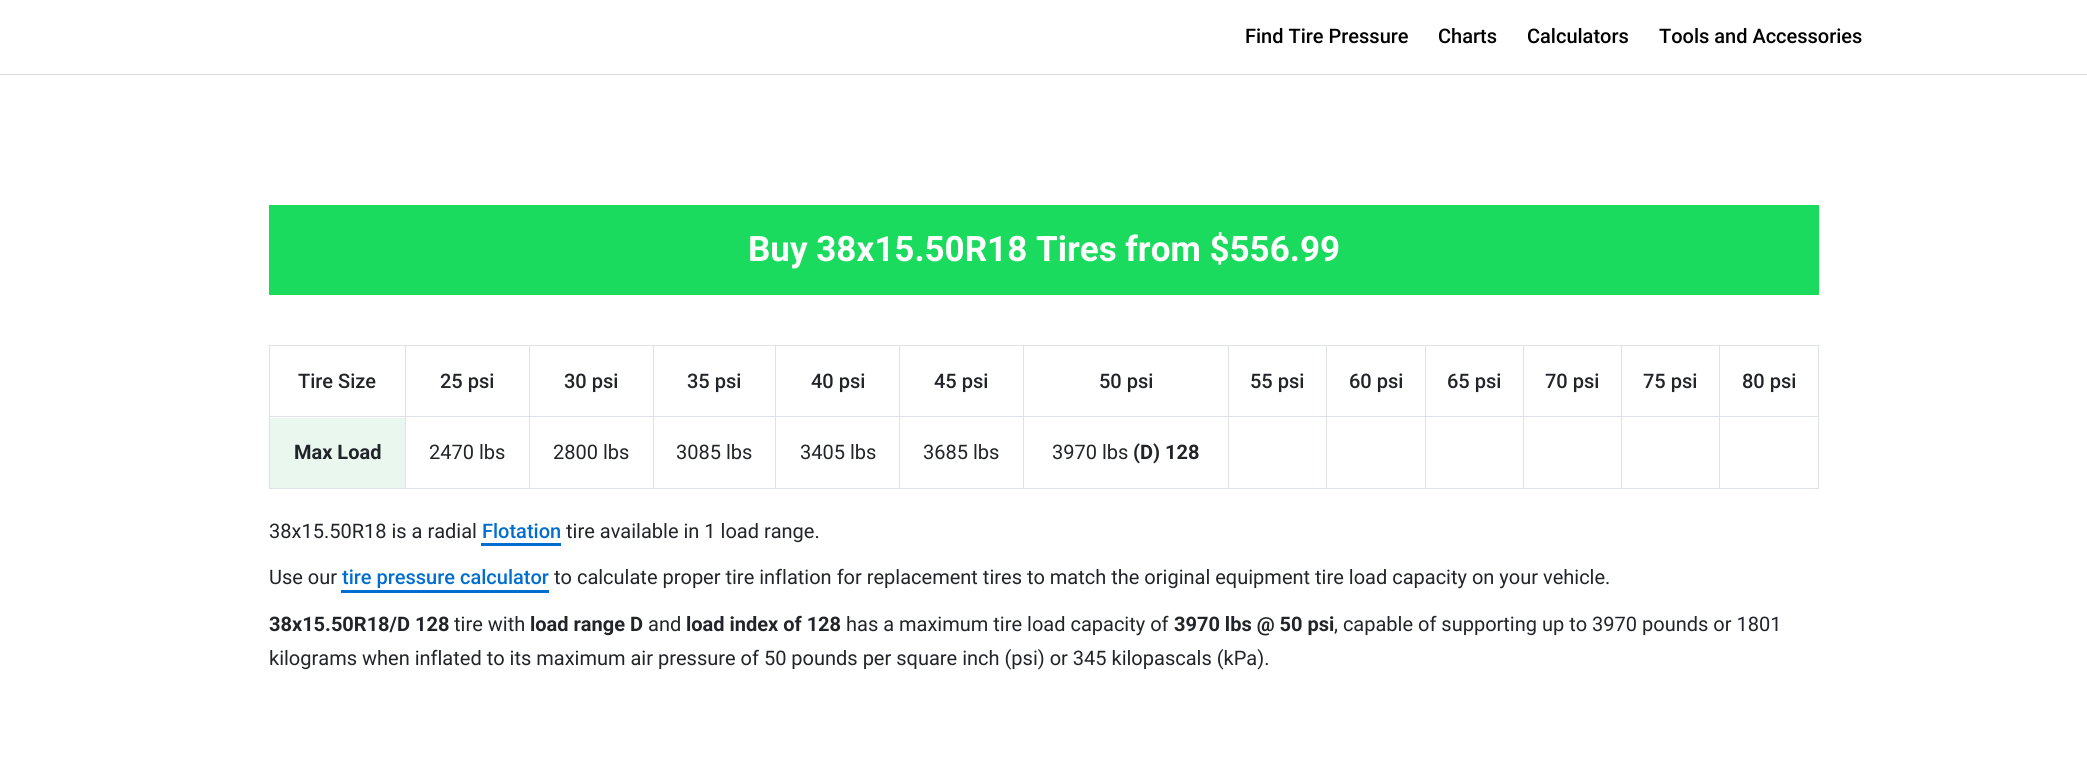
#include <cairo.h>
#include <math.h>
#include <stddef.h>


static void rgb(cairo_t *cr, int r, int g, int b)
{
	cairo_set_source_rgb(cr, r / 255.0, g / 255.0, b / 255.0);
}

static void face(cairo_t *cr, const char *family, double size, int italic, int bold)
{
	cairo_select_font_face(cr, family, italic ? CAIRO_FONT_SLANT_ITALIC : CAIRO_FONT_SLANT_NORMAL,
		bold ? CAIRO_FONT_WEIGHT_BOLD : CAIRO_FONT_WEIGHT_NORMAL);
	cairo_set_font_size(cr, size);
}

static void label(cairo_t *cr, double x, double y, const char *s)
{
	cairo_move_to(cr, x, y);
	cairo_show_text(cr, s);
}

static void rect(cairo_t *cr, double x, double y, double w, double h)
{
	cairo_rectangle(cr, x, y, w, h);
	cairo_fill(cr);
}

static void draw(cairo_t *cr) {
	rgb(cr, 255, 255, 255);
	cairo_paint(cr);
	rgb(cr, 218, 218, 218);
	rect(cr, 0, 74, 2087, 1);
	face(cr, "Roboto Medium", 20, 0, 0);
	rgb(cr, 0, 0, 0);
	label(cr, 1245, 43, "Find Tire Pressure");
	label(cr, 1438, 43, "Charts");
	label(cr, 1527, 43, "Calculators");
	label(cr, 1659, 43, "Tools and Accessories");
	rgb(cr, 26, 219, 94);
	rect(cr, 269, 205, 1550, 90);
	face(cr, "Roboto", 35, 0, 1);
	rgb(cr, 255, 255, 255);
	label(cr, 748, 261, "Buy 38x15.50R18 Tires from $556.99");
	rgb(cr, 222, 226, 230);
	rect(cr, 1719, 345, 100, 1);
	rect(cr, 1719, 416, 100, 1);
	rect(cr, 1818, 416, 1, 73);
	rect(cr, 1719, 488, 100, 1);
	rect(cr, 1719, 416, 1, 73);
	rect(cr, 1621, 416, 99, 1);
	rect(cr, 1719, 345, 1, 73);
	rect(cr, 1621, 345, 99, 1);
	rect(cr, 1621, 488, 99, 1);
	rect(cr, 1621, 416, 1, 73);
	rect(cr, 1523, 416, 100, 1);
	rect(cr, 1621, 345, 1, 73);
	rect(cr, 1523, 345, 100, 1);
	rect(cr, 1523, 488, 100, 1);
	rect(cr, 1523, 416, 1, 73);
	rect(cr, 1425, 416, 99, 1);
	rect(cr, 1523, 345, 1, 73);
	rect(cr, 1425, 345, 99, 1);
	rect(cr, 1425, 488, 99, 1);
	rect(cr, 1425, 416, 1, 73);
	rect(cr, 1326, 416, 100, 1);
	rect(cr, 1425, 345, 1, 73);
	rect(cr, 1326, 345, 100, 1);
	rect(cr, 1326, 488, 100, 1);
	rect(cr, 1326, 416, 1, 73);
	rect(cr, 1228, 416, 100, 1);
	rect(cr, 1326, 345, 1, 73);
	rect(cr, 1228, 345, 100, 1);
	rect(cr, 1228, 488, 100, 1);
	rect(cr, 1228, 416, 1, 73);
	rect(cr, 1023, 416, 206, 1);
	rect(cr, 1228, 345, 1, 73);
	rect(cr, 1023, 345, 206, 1);
	rect(cr, 1023, 488, 206, 1);
	rect(cr, 1023, 416, 1, 73);
	rect(cr, 899, 416, 125, 1);
	rect(cr, 1023, 345, 1, 73);
	rect(cr, 899, 345, 125, 1);
	rect(cr, 899, 488, 125, 1);
	rect(cr, 899, 416, 1, 73);
	rect(cr, 775, 416, 125, 1);
	rect(cr, 899, 345, 1, 73);
	rect(cr, 775, 345, 125, 1);
	rect(cr, 775, 488, 125, 1);
	rect(cr, 775, 416, 1, 73);
	rect(cr, 653, 416, 123, 1);
	rect(cr, 775, 345, 1, 73);
	rect(cr, 653, 345, 123, 1);
	rect(cr, 653, 488, 123, 1);
	rect(cr, 653, 416, 1, 73);
	rect(cr, 529, 416, 125, 1);
	rect(cr, 653, 345, 1, 73);
	rect(cr, 529, 345, 125, 1);
	rect(cr, 529, 488, 125, 1);
	rect(cr, 529, 416, 1, 73);
	rect(cr, 405, 416, 125, 1);
	rect(cr, 529, 345, 1, 73);
	rect(cr, 405, 345, 125, 1);
	rect(cr, 405, 488, 125, 1);
	rect(cr, 405, 416, 1, 73);
	rect(cr, 269, 416, 137, 1);
	rect(cr, 405, 345, 1, 73);
	rect(cr, 269, 345, 137, 1);
	rect(cr, 269, 488, 137, 1);
	rect(cr, 269, 416, 1, 73);
	rect(cr, 269, 345, 1, 73);
	face(cr, "Roboto Medium", 20, 0, 0);
	rgb(cr, 33, 37, 41);
	label(cr, 298, 388, "Tire Size");
	label(cr, 440, 388, "25 psi");
	label(cr, 564, 388, "30 psi");
	label(cr, 687, 388, "35 psi");
	label(cr, 811, 388, "40 psi");
	label(cr, 934, 388, "45 psi");
	label(cr, 1099, 388, "50 psi");
	label(cr, 1250, 388, "55 psi");
	label(cr, 1349, 388, "60 psi");
	label(cr, 1447, 388, "65 psi");
	label(cr, 1545, 388, "70 psi");
	label(cr, 1643, 388, "75 psi");
	rgb(cr, 222, 226, 230);
	rect(cr, 1818, 345, 1, 73);
	rgb(cr, 33, 37, 41);
	label(cr, 1742, 388, "80 psi");
	rgb(cr, 233, 247, 239);
	rect(cr, 270, 418, 135, 70);
	face(cr, "Roboto", 20, 0, 1);
	rgb(cr, 33, 37, 41);
	label(cr, 294, 459, "Max Load");
	face(cr, "Roboto", 20, 0, 0);
	label(cr, 429, 459, "2470 lbs");
	label(cr, 553, 459, "2800 lbs");
	label(cr, 676, 459, "3085 lbs");
	label(cr, 800, 459, "3405 lbs");
	label(cr, 923, 459, "3685 lbs");
	label(cr, 1052, 459, "3970 lbs");
	face(cr, "Roboto", 20, 0, 1);
	label(cr, 1133, 459, "(D) 128");
	face(cr, "Roboto", 20, 0, 0);
	label(cr, 269, 538, "38x15.50R18 is a radial");
	face(cr, "Roboto Medium", 20, 0, 0);
	rgb(cr, 0, 109, 208);
	label(cr, 482, 538, "Flotation");
	rect(cr, 481, 543, 80, 3);
	face(cr, "Roboto", 20, 0, 0);
	rgb(cr, 33, 37, 41);
	label(cr, 566, 538, "tire available in 1 load range.");
	label(cr, 269, 584, "Use our");
	face(cr, "Roboto Medium", 20, 0, 0);
	rgb(cr, 0, 109, 208);
	label(cr, 342, 584, "tire pressure calculator");
	rect(cr, 341, 590, 208, 3);
	face(cr, "Roboto", 20, 0, 0);
	rgb(cr, 33, 37, 41);
	label(cr, 554, 584, "to calculate proper tire inflation for replacement tires to match the original equipment tire load capacity on your vehicle.");
	face(cr, "Roboto", 20, 0, 1);
	label(cr, 269, 631, "38x15.50R18/D 128");
	face(cr, "Roboto", 20, 0, 0);
	label(cr, 454, 631, "tire with");
	face(cr, "Roboto", 20, 0, 1);
	label(cr, 530, 631, "load range D");
	face(cr, "Roboto", 20, 0, 0);
	label(cr, 648, 631, "and");
	face(cr, "Roboto", 20, 0, 1);
	label(cr, 686, 631, "load index of 128");
	face(cr, "Roboto", 20, 0, 0);
	label(cr, 846, 631, "has a maximum tire load capacity of");
	face(cr, "Roboto", 20, 0, 1);
	label(cr, 1174, 631, "3970 lbs @ 50 psi");
	face(cr, "Roboto", 20, 0, 0);
	label(cr, 1334, 631, ", capable of supporting up to 3970 pounds or 1801");
	label(cr, 269, 665, "kilograms when inflated to its maximum air pressure of 50 pounds per square inch (psi) or 345 kilopascals (kPa).");
}

int main(void) {
	cairo_surface_t *surface = cairo_image_surface_create(CAIRO_FORMAT_RGB24, 2087, 782);
	cairo_t *cr = cairo_create(surface);
	cairo_font_options_t *options = cairo_font_options_create();
	cairo_font_options_set_hint_metrics(options, CAIRO_HINT_METRICS_OFF);
	cairo_font_options_set_hint_style(options, CAIRO_HINT_STYLE_NONE);
	cairo_set_font_options(cr, options);
	cairo_set_miter_limit(cr, 4);
	draw(cr);
	cairo_surface_write_to_png(surface, "render.png");
	cairo_font_options_destroy(options);
	cairo_destroy(cr);
	cairo_surface_destroy(surface);
	return 0;
}
